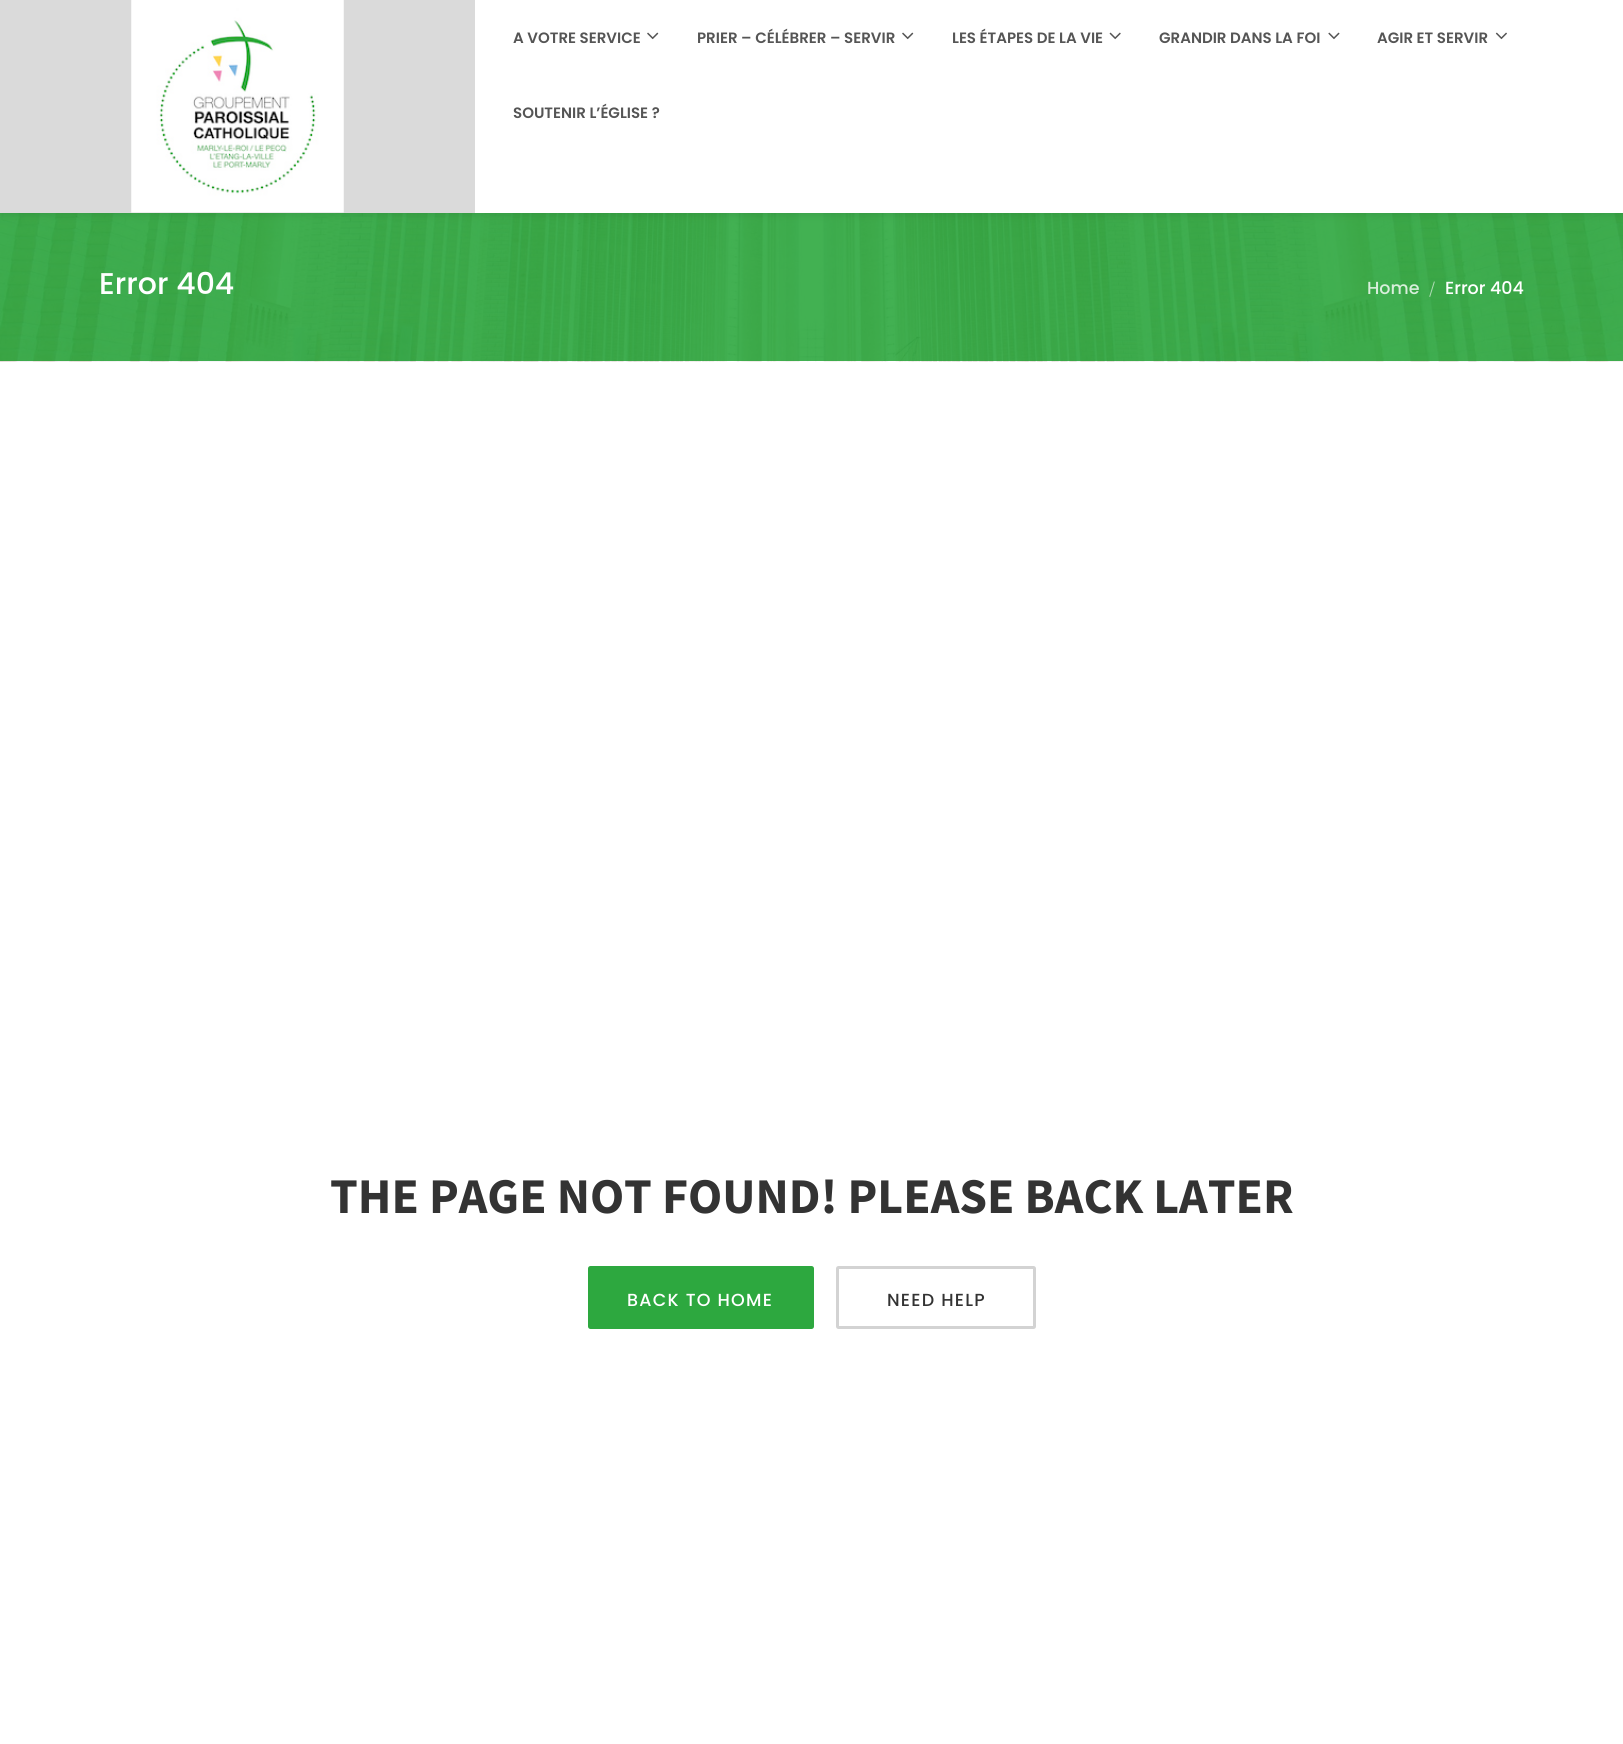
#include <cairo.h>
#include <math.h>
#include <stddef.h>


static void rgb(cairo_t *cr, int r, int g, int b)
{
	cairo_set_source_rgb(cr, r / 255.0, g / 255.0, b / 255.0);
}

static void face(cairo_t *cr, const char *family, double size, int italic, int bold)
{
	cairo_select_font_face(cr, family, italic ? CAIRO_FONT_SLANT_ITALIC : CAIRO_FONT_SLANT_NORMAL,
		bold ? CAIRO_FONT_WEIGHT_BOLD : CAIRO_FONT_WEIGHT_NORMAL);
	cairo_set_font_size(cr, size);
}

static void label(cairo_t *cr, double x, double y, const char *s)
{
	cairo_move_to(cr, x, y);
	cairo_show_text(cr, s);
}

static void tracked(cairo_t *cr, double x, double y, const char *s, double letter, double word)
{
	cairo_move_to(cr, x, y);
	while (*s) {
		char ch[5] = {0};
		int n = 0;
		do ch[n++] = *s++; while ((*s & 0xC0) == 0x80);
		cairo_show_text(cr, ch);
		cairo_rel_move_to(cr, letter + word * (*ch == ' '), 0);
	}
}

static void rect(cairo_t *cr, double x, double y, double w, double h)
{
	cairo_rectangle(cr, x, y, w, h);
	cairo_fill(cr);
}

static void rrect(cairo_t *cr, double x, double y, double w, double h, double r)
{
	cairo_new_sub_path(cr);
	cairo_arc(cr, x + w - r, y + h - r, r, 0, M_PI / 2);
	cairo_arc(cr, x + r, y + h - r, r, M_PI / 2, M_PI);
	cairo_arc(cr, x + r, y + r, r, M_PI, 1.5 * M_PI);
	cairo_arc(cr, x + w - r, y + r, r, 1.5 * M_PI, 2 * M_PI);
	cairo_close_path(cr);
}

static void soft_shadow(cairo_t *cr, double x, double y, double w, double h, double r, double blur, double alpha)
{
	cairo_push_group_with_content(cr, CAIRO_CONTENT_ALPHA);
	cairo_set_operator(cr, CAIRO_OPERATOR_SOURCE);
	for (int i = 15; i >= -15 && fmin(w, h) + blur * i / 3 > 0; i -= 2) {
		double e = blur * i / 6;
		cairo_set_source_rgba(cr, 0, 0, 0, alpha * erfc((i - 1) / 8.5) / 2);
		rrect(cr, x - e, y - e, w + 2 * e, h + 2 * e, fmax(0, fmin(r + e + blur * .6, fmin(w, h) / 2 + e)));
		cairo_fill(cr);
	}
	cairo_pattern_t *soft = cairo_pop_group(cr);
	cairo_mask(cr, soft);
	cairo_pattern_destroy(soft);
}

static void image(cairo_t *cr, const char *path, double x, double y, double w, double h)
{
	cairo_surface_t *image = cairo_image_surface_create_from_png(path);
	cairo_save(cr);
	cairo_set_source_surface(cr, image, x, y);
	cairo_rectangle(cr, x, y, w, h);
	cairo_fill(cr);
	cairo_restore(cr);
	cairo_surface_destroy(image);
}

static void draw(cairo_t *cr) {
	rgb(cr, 255, 255, 255);
	cairo_paint(cr);
	image(cr, "image5.png", 0, 213, 1623, 149);
	rgb(cr, 0, 0, 0);
	soft_shadow(cr, 1, 3, 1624, 212, 0, 4.5, 0.1);
	rgb(cr, 255, 255, 255);
	rect(cr, 475, 0, 1148, 213);
	rgb(cr, 218, 218, 218);
	rect(cr, 0, 0, 475, 213);
	image(cr, "image0.png", 131, 0, 213, 213);
	face(cr, "Poppins SemiBold", 15, 0, 0);
	rgb(cr, 85, 85, 85);
	label(cr, 513, 43, "A VOTRE SERVICE");
	image(cr, "image1.png", 647, 32, 12, 8);
	label(cr, 697, 43, "PRIER – CÉLÉBRER – SERVIR");
	image(cr, "image1.png", 902, 32, 12, 8);
	label(cr, 952, 43, "LES ÉTAPES DE LA VIE");
	image(cr, "image2.png", 1109, 32, 12, 8);
	label(cr, 1159, 43, "GRANDIR DANS LA FOI");
	image(cr, "image3.png", 1328, 32, 12, 8);
	label(cr, 1377, 43, "AGIR ET SERVIR");
	image(cr, "image4.png", 1495, 32, 12, 8);
	label(cr, 513, 118, "SOUTENIR L’ÉGLISE ?");
	face(cr, "Poppins Medium", 30, 0, 0);
	rgb(cr, 255, 255, 255);
	label(cr, 99, 294, "Error 404");
	face(cr, "Poppins Medium", 17.5, 0, 0);
	rgb(cr, 216, 238, 219);
	label(cr, 1367, 294, "Home");
	face(cr, "Source Sans Pro", 17.5, 0, 0);
	rgb(cr, 176, 220, 181);
	label(cr, 1429, 294, "/");
	face(cr, "Poppins Medium", 17.5, 0, 0);
	rgb(cr, 255, 255, 255);
	label(cr, 1445, 294, "Error 404");
	face(cr, "Source Sans Pro", 50, 0, 1);
	rgb(cr, 51, 51, 51);
	label(cr, 330, 1213, "THE PAGE NOT FOUND! PLEASE BACK LATER");
	rgb(cr, 45, 168, 63);
	rrect(cr, 589.5, 1267.5, 223, 60, 1);
	cairo_fill_preserve(cr);
	cairo_set_line_width(cr, 3);
	cairo_stroke(cr);
	face(cr, "Poppins Medium", 17.5, 0, 0);
	rgb(cr, 255, 255, 255);
	tracked(cr, 627, 1306, "BACK TO HOME", 1.25, 0);
	rrect(cr, 837.5, 1267.5, 197, 60, 1);
	rgb(cr, 211, 211, 211);
	cairo_stroke(cr);
	rgb(cr, 51, 51, 51);
	tracked(cr, 887, 1306, "NEED HELP", 1.25, 0);
}

int main(void) {
	cairo_surface_t *surface = cairo_image_surface_create(CAIRO_FORMAT_RGB24, 1623, 1744);
	cairo_t *cr = cairo_create(surface);
	cairo_font_options_t *options = cairo_font_options_create();
	cairo_font_options_set_hint_metrics(options, CAIRO_HINT_METRICS_OFF);
	cairo_font_options_set_hint_style(options, CAIRO_HINT_STYLE_NONE);
	cairo_set_font_options(cr, options);
	cairo_set_miter_limit(cr, 4);
	draw(cr);
	cairo_surface_write_to_png(surface, "render.png");
	cairo_font_options_destroy(options);
	cairo_destroy(cr);
	cairo_surface_destroy(surface);
	return 0;
}
